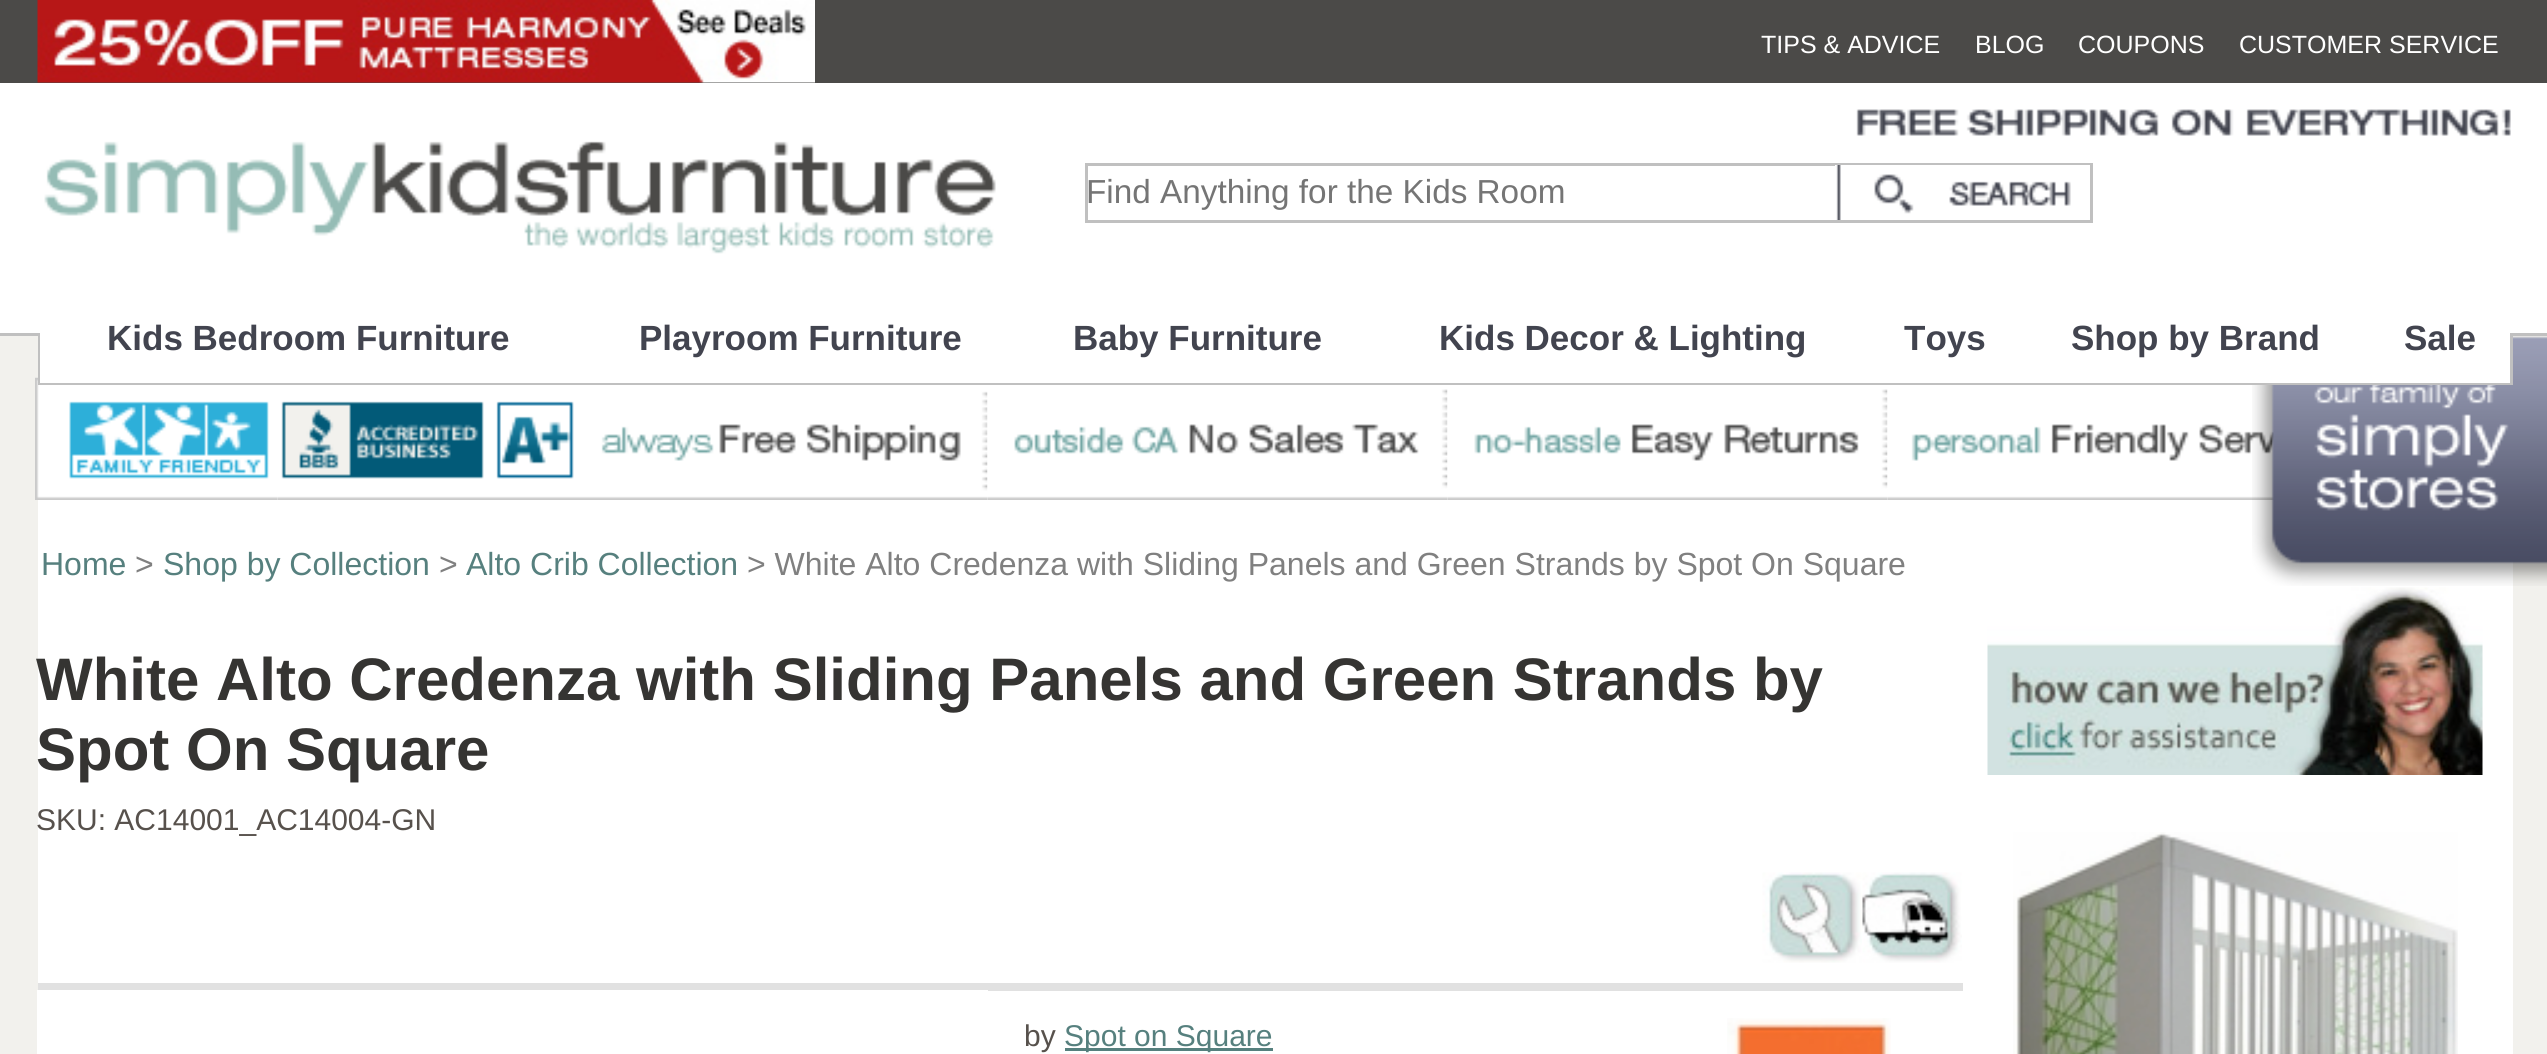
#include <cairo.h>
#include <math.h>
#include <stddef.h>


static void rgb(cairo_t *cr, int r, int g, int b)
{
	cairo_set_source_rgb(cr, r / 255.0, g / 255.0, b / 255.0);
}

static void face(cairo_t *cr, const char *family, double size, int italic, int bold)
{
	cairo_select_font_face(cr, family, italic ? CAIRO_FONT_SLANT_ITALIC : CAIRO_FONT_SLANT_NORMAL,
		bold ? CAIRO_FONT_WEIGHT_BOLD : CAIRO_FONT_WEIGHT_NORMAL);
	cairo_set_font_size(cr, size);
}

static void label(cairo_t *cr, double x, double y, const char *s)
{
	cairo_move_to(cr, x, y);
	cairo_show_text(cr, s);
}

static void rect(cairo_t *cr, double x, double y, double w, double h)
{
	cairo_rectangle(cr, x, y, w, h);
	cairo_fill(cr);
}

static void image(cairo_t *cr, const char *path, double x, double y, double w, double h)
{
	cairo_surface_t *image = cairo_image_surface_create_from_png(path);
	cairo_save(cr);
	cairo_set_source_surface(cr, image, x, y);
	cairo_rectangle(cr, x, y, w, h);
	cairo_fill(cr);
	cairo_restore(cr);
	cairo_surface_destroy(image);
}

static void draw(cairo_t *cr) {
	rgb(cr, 242, 241, 237);
	cairo_paint(cr);
	rgb(cr, 75, 74, 72);
	rect(cr, 0, 0, 2547, 83);
	image(cr, "image0.png", 37, 0, 778, 83);
	face(cr, "Liberation Sans", 25, 0, 0);
	rgb(cr, 255, 255, 255);
	label(cr, 1761, 53, "TIPS & ADVICE");
	label(cr, 1975, 53, "BLOG");
	label(cr, 2078, 53, "COUPONS");
	label(cr, 2239, 53, "CUSTOMER SERVICE");
	rect(cr, 0, 83, 2547, 250);
	rgb(cr, 192, 192, 192);
	rect(cr, 0, 333, 2547, 3);
	image(cr, "image1.png", 1856, 109, 655, 27);
	image(cr, "image2.png", 44, 141, 952, 113);
	cairo_rectangle(cr, 1086.5, 164.5, 1005, 57);
	cairo_set_line_width(cr, 3);
	cairo_stroke(cr);
	face(cr, "Liberation Sans", 33.3, 0, 0);
	rgb(cr, 117, 117, 117);
	label(cr, 1086, 203, "Find Anything for the Kids Room");
	image(cr, "image3.png", 1835, 165, 255, 55);
	rgb(cr, 255, 255, 255);
	rect(cr, 38, 385, 2475, 669);
	image(cr, "image4.png", 35, 377, 243, 123);
	image(cr, "image6.png", 590, 385, 398, 115);
	image(cr, "image7.png", 987, 385, 461, 115);
	image(cr, "image8.png", 1447, 385, 441, 115);
	image(cr, "image9.png", 1887, 385, 387, 115);
	image(cr, "image10.png", 2252, 336, 295, 250);
	rgb(cr, 192, 192, 192);
	rect(cr, 38, 336, 2475, 49);
	rgb(cr, 255, 255, 255);
	rect(cr, 40, 333, 2470, 50);
	face(cr, "Liberation Sans", 35, 0, 1);
	rgb(cr, 66, 68, 79);
	label(cr, 107, 350, "Kids Bedroom Furniture");
	label(cr, 639, 350, "Playroom Furniture");
	label(cr, 1073, 350, "Baby Furniture");
	label(cr, 1439, 350, "Kids Decor & Lighting");
	label(cr, 1904, 350, "Toys");
	label(cr, 2071, 350, "Shop by Brand");
	label(cr, 2404, 350, "Sale");
	image(cr, "image5.png", 277, 385, 313, 115);
	face(cr, "Liberation Sans", 32, 0, 0);
	rgb(cr, 86, 128, 126);
	label(cr, 41, 575, "Home");
	rgb(cr, 128, 128, 128);
	label(cr, 135, 575, ">");
	rgb(cr, 86, 128, 126);
	label(cr, 163, 575, "Shop by Collection");
	rgb(cr, 128, 128, 128);
	label(cr, 439, 575, ">");
	rgb(cr, 86, 128, 126);
	label(cr, 466, 575, "Alto Crib Collection");
	rgb(cr, 128, 128, 128);
	label(cr, 747, 575, "> White Alto Credenza with Sliding Panels and Green Strands by Spot On Square");
	rgb(cr, 225, 225, 225);
	rect(cr, 38, 983, 1925, 8);
	face(cr, "Liberation Sans", 60, 0, 1);
	rgb(cr, 53, 52, 50);
	label(cr, 36, 700, "White Alto Credenza with Sliding Panels and Green Strands by");
	label(cr, 36, 770, "Spot On Square");
	face(cr, "Liberation Sans", 30, 0, 0);
	rgb(cr, 87, 81, 76);
	label(cr, 36, 830, "SKU: AC14001_AC14004-GN");
	image(cr, "image11.png", 1762, 872, 100, 91);
	image(cr, "image12.png", 1862, 872, 100, 91);
	rgb(cr, 255, 255, 255);
	rect(cr, 37, 990, 951, 64);
	rgb(cr, 87, 81, 76);
	label(cr, 1024, 1046, "by");
	rgb(cr, 86, 128, 126);
	rect(cr, 1065, 1048, 208, 3);
	label(cr, 1064, 1046, "Spot on Square");
	image(cr, "image13.png", 1727, 1018, 164, 36);
	image(cr, "image14.png", 1987, 587, 496, 188);
	image(cr, "image15.png", 2013, 832, 445, 222);
}

int main(void) {
	cairo_surface_t *surface = cairo_image_surface_create(CAIRO_FORMAT_RGB24, 2547, 1054);
	cairo_t *cr = cairo_create(surface);
	cairo_font_options_t *options = cairo_font_options_create();
	cairo_font_options_set_hint_metrics(options, CAIRO_HINT_METRICS_OFF);
	cairo_font_options_set_hint_style(options, CAIRO_HINT_STYLE_NONE);
	cairo_set_font_options(cr, options);
	cairo_set_miter_limit(cr, 4);
	draw(cr);
	cairo_surface_write_to_png(surface, "render.png");
	cairo_font_options_destroy(options);
	cairo_destroy(cr);
	cairo_surface_destroy(surface);
	return 0;
}
